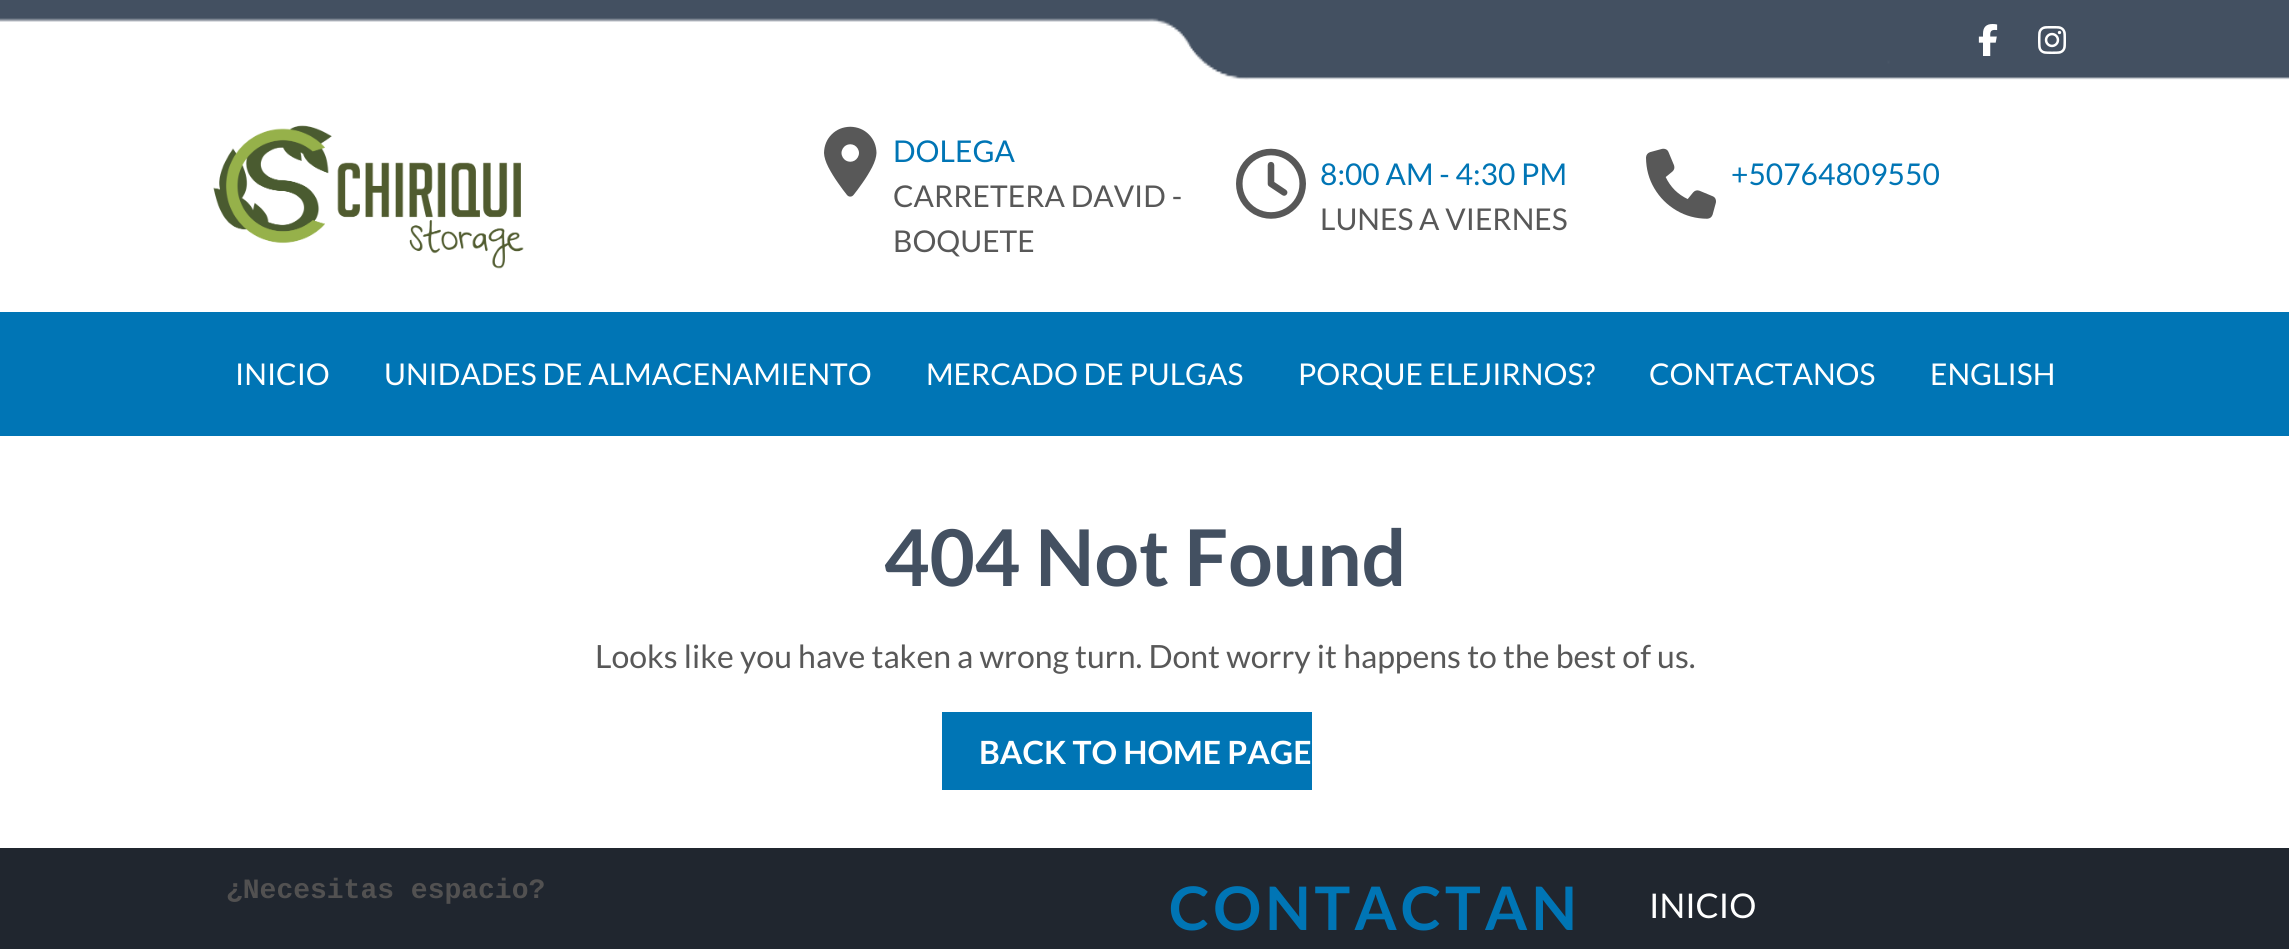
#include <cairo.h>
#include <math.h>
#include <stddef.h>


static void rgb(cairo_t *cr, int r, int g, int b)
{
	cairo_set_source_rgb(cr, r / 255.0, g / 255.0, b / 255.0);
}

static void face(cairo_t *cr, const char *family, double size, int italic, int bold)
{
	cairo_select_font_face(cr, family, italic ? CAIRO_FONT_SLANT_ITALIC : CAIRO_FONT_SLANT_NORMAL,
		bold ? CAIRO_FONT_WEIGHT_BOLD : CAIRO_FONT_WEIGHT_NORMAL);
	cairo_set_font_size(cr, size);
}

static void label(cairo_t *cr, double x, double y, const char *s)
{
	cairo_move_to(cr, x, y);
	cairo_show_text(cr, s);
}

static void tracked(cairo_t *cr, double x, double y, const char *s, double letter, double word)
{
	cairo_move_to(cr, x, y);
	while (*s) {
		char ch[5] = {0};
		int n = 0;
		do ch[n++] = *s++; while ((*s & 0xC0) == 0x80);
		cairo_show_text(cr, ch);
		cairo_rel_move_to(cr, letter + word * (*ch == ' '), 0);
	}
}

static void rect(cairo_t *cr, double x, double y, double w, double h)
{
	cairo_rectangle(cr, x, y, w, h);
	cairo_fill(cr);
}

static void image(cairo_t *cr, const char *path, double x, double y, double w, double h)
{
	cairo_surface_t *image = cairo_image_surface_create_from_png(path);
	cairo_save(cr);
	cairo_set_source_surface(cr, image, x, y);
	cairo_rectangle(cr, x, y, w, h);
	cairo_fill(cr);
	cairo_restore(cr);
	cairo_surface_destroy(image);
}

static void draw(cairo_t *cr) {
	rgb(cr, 255, 255, 255);
	cairo_paint(cr);
	image(cr, "image0.png", 0, 0, 2289, 80);
	image(cr, "image1.png", 1978, 24, 20, 32);
	image(cr, "image2.png", 2038, 26, 28, 28);
	image(cr, "image3.png", 213, 125, 311, 144);
	image(cr, "image4.png", 824, 126, 53, 71);
	face(cr, "Lato", 30, 0, 0);
	rgb(cr, 0, 117, 181);
	label(cr, 893, 162, "DOLEGA");
	rgb(cr, 88, 88, 88);
	label(cr, 893, 207, "CARRETERA DAVID -");
	label(cr, 893, 252, "BOQUETE");
	image(cr, "image5.png", 1236, 148, 70, 71);
	rgb(cr, 0, 117, 181);
	label(cr, 1320, 185, "8:00 AM - 4:30 PM");
	rgb(cr, 88, 88, 88);
	label(cr, 1320, 230, "LUNES A VIERNES");
	image(cr, "image6.png", 1646, 148, 70, 71);
	rgb(cr, 0, 117, 181);
	label(cr, 1731, 185, "+50764809550");
	rect(cr, 0, 312, 2289, 124);
	rgb(cr, 255, 255, 255);
	label(cr, 235, 385, "INICIO");
	label(cr, 384, 385, "UNIDADES DE ALMACENAMIENTO");
	label(cr, 926, 385, "MERCADO DE PULGAS");
	label(cr, 1298, 385, "PORQUE ELEJIRNOS?");
	label(cr, 1649, 385, "CONTACTANOS");
	label(cr, 1930, 385, "ENGLISH");
	face(cr, "Lato", 78.25, 0, 1);
	rgb(cr, 67, 80, 97);
	label(cr, 884, 586, "404 Not Found");
	face(cr, "Lato", 32, 0, 0);
	rgb(cr, 88, 88, 88);
	label(cr, 595, 668, "Looks like you have taken a wrong turn. Dont worry it happens to the best of us.");
	rgb(cr, 0, 117, 181);
	rect(cr, 942, 712, 370, 78);
	face(cr, "Lato", 32, 0, 1);
	rgb(cr, 255, 255, 255);
	label(cr, 979, 764, "BACK TO HOME PAGE");
	rgb(cr, 32, 38, 47);
	rect(cr, 0, 848, 2289, 101);
	face(cr, "Liberation Mono", 28, 0, 1);
	rgb(cr, 82, 81, 81);
	label(cr, 226, 898, "¿Necesitas espacio?");
	face(cr, "Lato", 60, 0, 1);
	rgb(cr, 0, 117, 181);
	tracked(cr, 1169, 930, "CONTACTAN", 4, 0);
	face(cr, "Lato", 34, 0, 0);
	rgb(cr, 255, 255, 255);
	label(cr, 1649, 918, "INICIO");
}

int main(void) {
	cairo_surface_t *surface = cairo_image_surface_create(CAIRO_FORMAT_RGB24, 2289, 949);
	cairo_t *cr = cairo_create(surface);
	cairo_font_options_t *options = cairo_font_options_create();
	cairo_font_options_set_hint_metrics(options, CAIRO_HINT_METRICS_OFF);
	cairo_font_options_set_hint_style(options, CAIRO_HINT_STYLE_NONE);
	cairo_set_font_options(cr, options);
	cairo_set_miter_limit(cr, 4);
	draw(cr);
	cairo_surface_write_to_png(surface, "render.png");
	cairo_font_options_destroy(options);
	cairo_destroy(cr);
	cairo_surface_destroy(surface);
	return 0;
}
